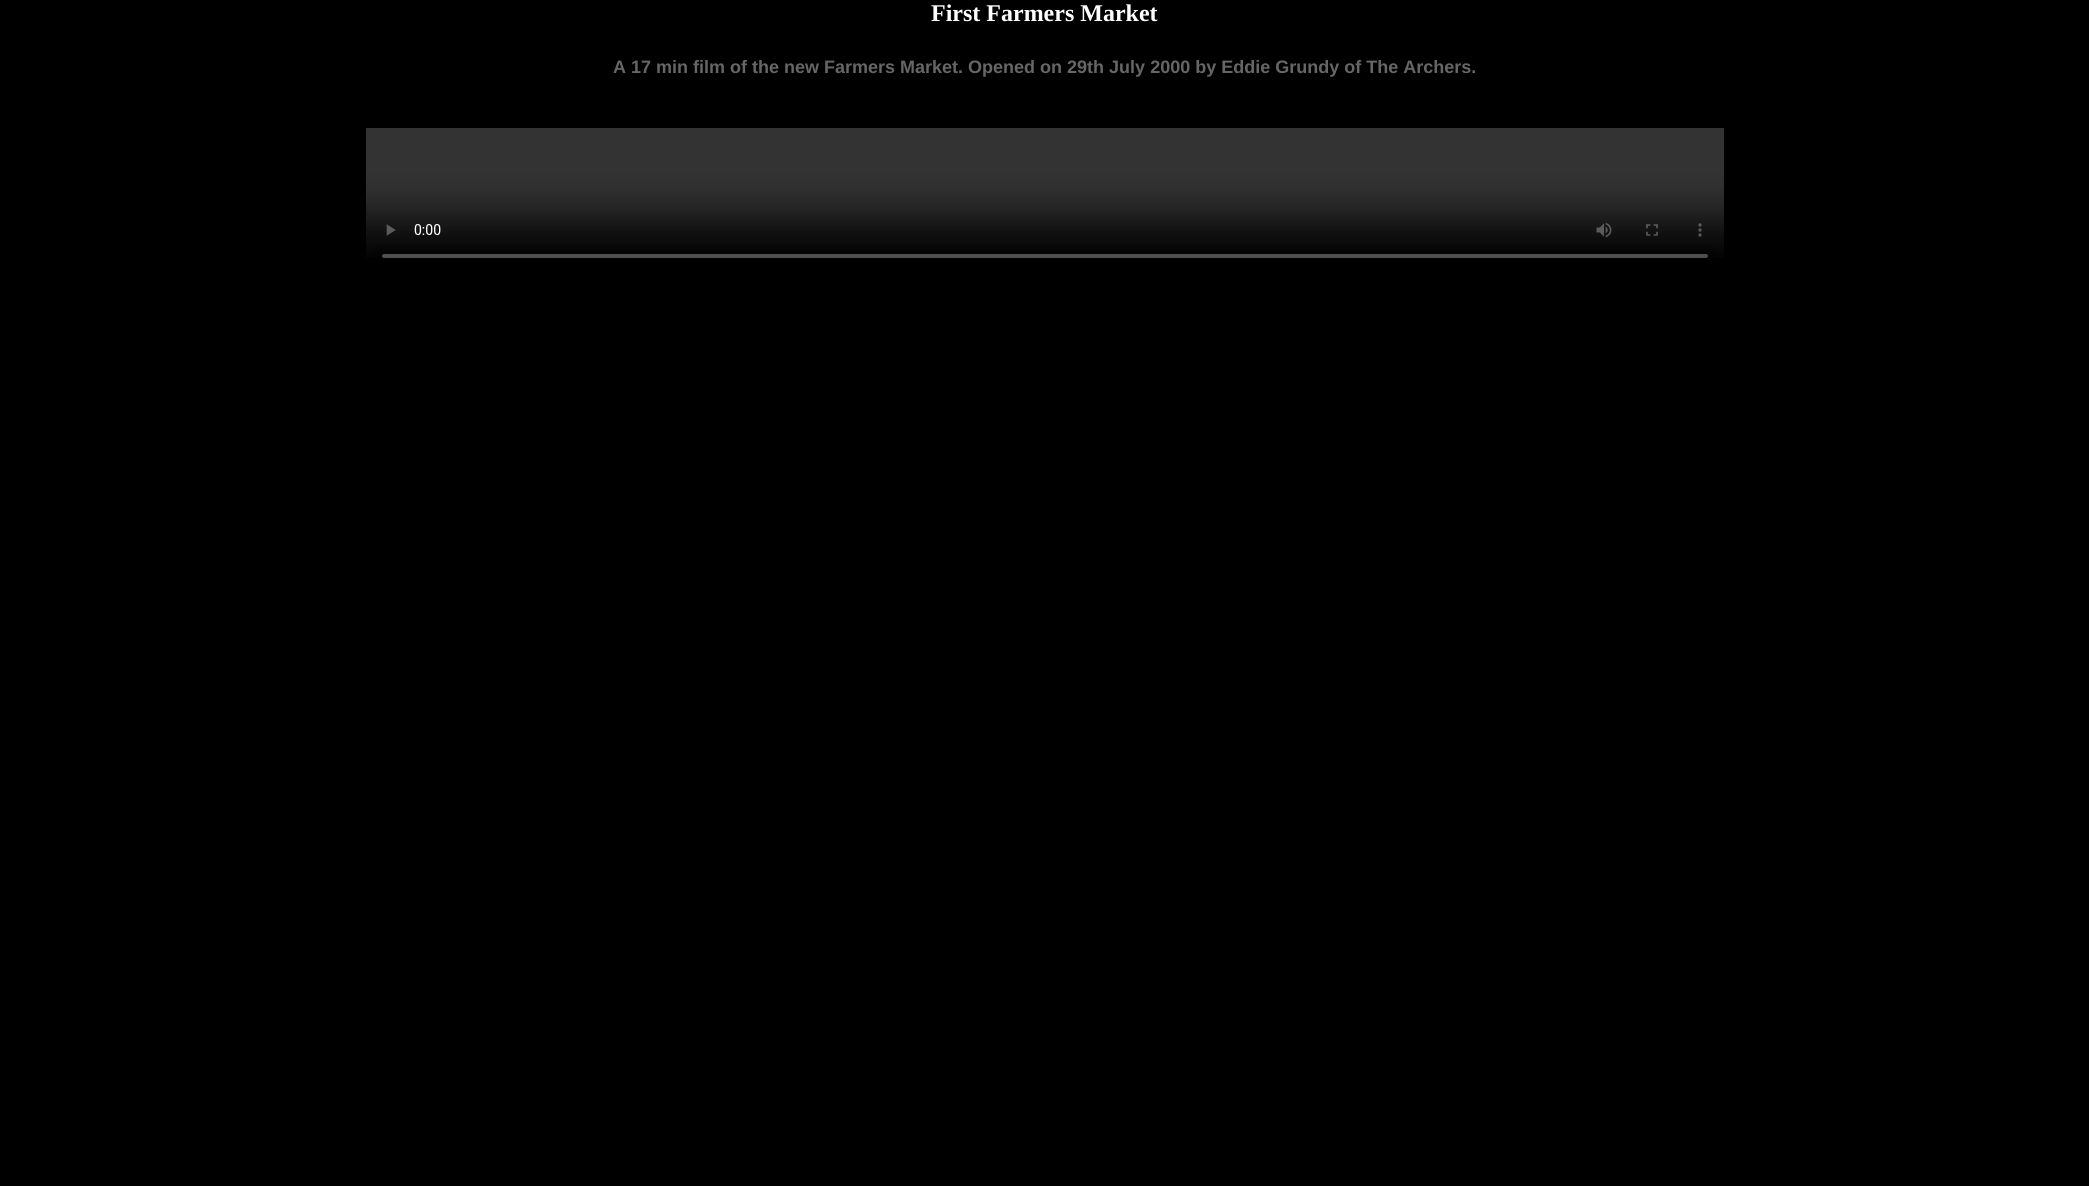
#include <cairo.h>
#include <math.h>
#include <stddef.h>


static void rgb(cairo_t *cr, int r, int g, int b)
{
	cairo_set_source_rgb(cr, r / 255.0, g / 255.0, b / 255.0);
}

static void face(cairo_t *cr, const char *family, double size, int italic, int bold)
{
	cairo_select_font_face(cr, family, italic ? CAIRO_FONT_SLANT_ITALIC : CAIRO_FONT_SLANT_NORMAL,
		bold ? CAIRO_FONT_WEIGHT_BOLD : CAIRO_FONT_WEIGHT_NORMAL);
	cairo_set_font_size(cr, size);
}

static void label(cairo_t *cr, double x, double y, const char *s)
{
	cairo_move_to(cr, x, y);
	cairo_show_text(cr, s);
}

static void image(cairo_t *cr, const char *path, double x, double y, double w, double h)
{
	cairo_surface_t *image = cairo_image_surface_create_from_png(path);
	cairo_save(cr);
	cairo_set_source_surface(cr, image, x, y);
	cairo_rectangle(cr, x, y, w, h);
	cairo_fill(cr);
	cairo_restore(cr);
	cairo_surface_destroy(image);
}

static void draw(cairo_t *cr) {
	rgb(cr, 0, 0, 0);
	cairo_paint(cr);
	face(cr, "Liberation Serif", 24, 0, 1);
	rgb(cr, 255, 255, 255);
	label(cr, 931, 21, "First Farmers Market");
	face(cr, "Liberation Sans", 18, 0, 1);
	rgb(cr, 102, 102, 102);
	label(cr, 613, 73, "A 17 min film of the new Farmers Market. Opened on 29th July 2000 by Eddie Grundy of The Archers.");
	image(cr, "image0.png", 366, 128, 1358, 130);
}

int main(void) {
	cairo_surface_t *surface = cairo_image_surface_create(CAIRO_FORMAT_RGB24, 2089, 1186);
	cairo_t *cr = cairo_create(surface);
	cairo_font_options_t *options = cairo_font_options_create();
	cairo_font_options_set_hint_metrics(options, CAIRO_HINT_METRICS_OFF);
	cairo_font_options_set_hint_style(options, CAIRO_HINT_STYLE_NONE);
	cairo_set_font_options(cr, options);
	cairo_set_miter_limit(cr, 4);
	draw(cr);
	cairo_surface_write_to_png(surface, "render.png");
	cairo_font_options_destroy(options);
	cairo_destroy(cr);
	cairo_surface_destroy(surface);
	return 0;
}
